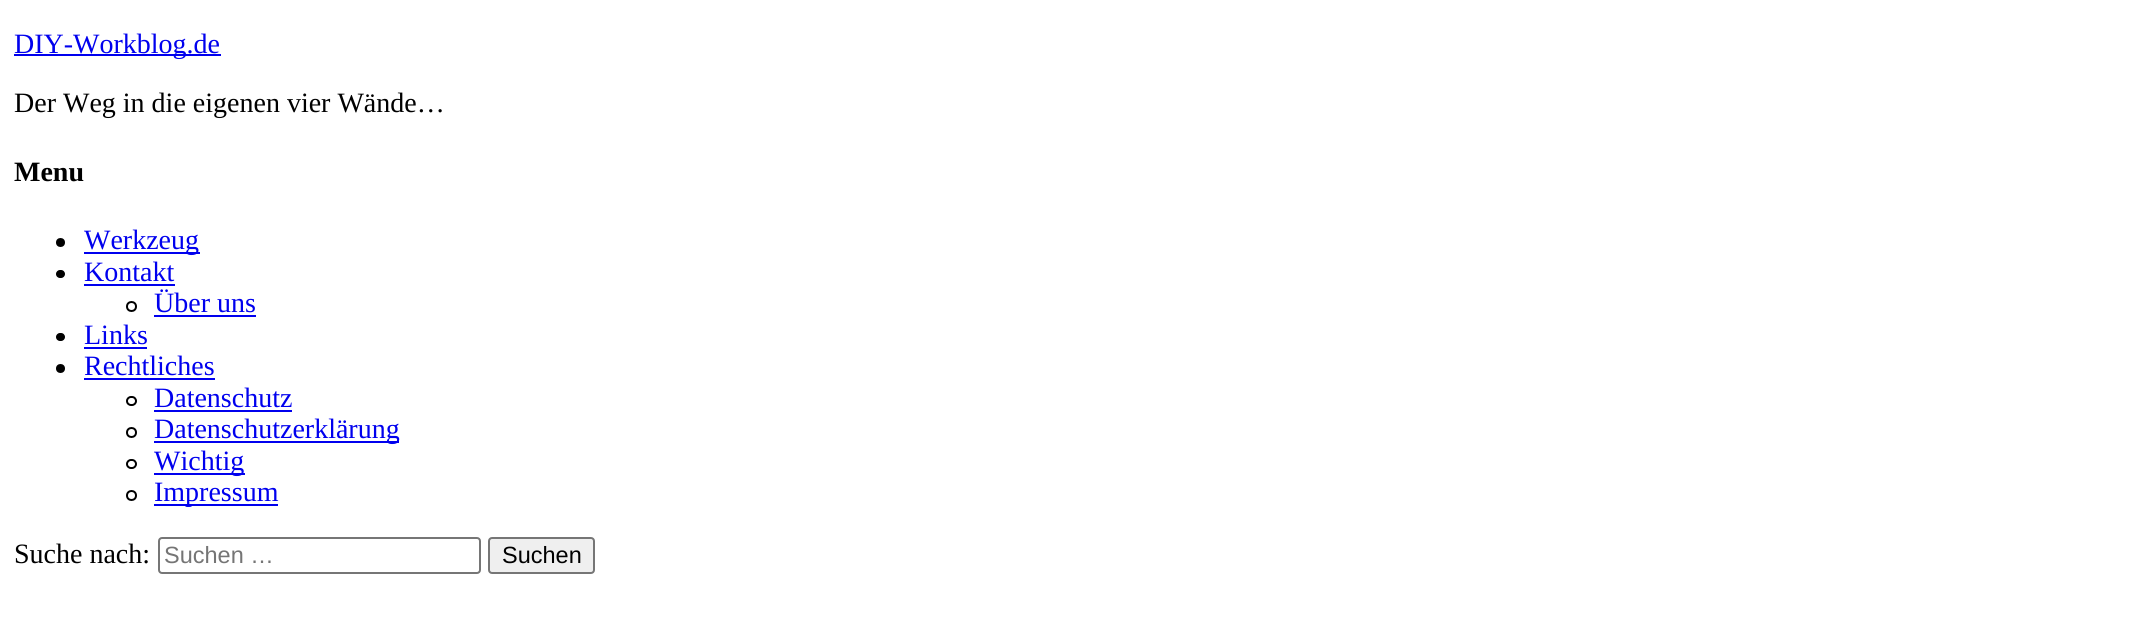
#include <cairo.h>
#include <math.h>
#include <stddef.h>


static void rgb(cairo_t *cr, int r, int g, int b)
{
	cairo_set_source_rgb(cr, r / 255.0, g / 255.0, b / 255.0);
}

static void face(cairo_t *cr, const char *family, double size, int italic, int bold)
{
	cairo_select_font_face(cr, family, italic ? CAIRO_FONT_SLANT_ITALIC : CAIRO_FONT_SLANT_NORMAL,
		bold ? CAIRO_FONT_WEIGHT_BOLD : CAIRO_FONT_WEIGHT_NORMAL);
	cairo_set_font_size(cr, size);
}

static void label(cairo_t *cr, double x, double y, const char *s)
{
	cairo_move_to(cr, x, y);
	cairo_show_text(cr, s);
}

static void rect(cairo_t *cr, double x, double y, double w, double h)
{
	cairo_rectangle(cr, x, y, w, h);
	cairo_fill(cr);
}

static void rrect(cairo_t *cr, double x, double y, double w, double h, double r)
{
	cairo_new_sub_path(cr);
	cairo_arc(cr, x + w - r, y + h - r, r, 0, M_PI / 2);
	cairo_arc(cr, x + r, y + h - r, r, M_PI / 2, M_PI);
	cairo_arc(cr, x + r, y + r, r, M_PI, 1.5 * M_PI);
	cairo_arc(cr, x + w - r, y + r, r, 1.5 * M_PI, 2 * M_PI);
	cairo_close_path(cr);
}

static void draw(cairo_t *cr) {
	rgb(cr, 255, 255, 255);
	cairo_paint(cr);
	rgb(cr, 0, 0, 238);
	rect(cr, 14, 54, 207, 2);
	face(cr, "Liberation Serif", 28, 0, 0);
	label(cr, 14, 53, "DIY-Workblog.de");
	rgb(cr, 0, 0, 0);
	label(cr, 14, 112, "Der Weg in die eigenen vier Wände…");
	face(cr, "Liberation Serif", 28, 0, 1);
	label(cr, 14, 181, "Menu");
	cairo_new_path(cr);
	cairo_arc(cr, 60.5, 242.5, 4.5, 0, 2 * M_PI);
	cairo_fill(cr);
	rgb(cr, 0, 0, 238);
	rect(cr, 84, 252, 116, 2);
	face(cr, "Liberation Serif", 28, 0, 0);
	label(cr, 84, 249, "Werkzeug");
	rgb(cr, 0, 0, 0);
	rrect(cr, 56, 270, 9, 8, 4);
	cairo_fill(cr);
	rgb(cr, 0, 0, 238);
	label(cr, 84, 281, "Kontakt");
	rect(cr, 84, 284, 91, 2);
	cairo_new_path(cr);
	cairo_arc(cr, 131.5, 306.5, 4.5, 0, 2 * M_PI);
	rgb(cr, 0, 0, 0);
	cairo_stroke(cr);
	rgb(cr, 0, 0, 238);
	label(cr, 154, 312, "Über uns");
	rect(cr, 154, 315, 102, 2);
	rgb(cr, 0, 0, 0);
	rrect(cr, 56, 333, 9, 8, 4);
	cairo_fill(cr);
	rgb(cr, 0, 0, 238);
	label(cr, 84, 344, "Links");
	rect(cr, 84, 347, 63, 2);
	rgb(cr, 0, 0, 0);
	cairo_new_path(cr);
	cairo_arc(cr, 60.5, 368.5, 4.5, 0, 2 * M_PI);
	cairo_fill(cr);
	rgb(cr, 0, 0, 238);
	label(cr, 84, 375, "Rechtliches");
	rect(cr, 84, 378, 131, 2);
	rrect(cr, 127, 397, 9, 8, 4);
	rgb(cr, 0, 0, 0);
	cairo_stroke(cr);
	rgb(cr, 0, 0, 238);
	label(cr, 154, 407, "Datenschutz");
	rect(cr, 154, 410, 138, 2);
	cairo_new_path(cr);
	cairo_arc(cr, 131.5, 432.5, 4.5, 0, 2 * M_PI);
	rgb(cr, 0, 0, 0);
	cairo_stroke(cr);
	rgb(cr, 0, 0, 238);
	rect(cr, 154, 441, 245, 2);
	label(cr, 154, 438, "Datenschutzerklärung");
	rrect(cr, 127, 460, 9, 8, 4);
	rgb(cr, 0, 0, 0);
	cairo_stroke(cr);
	rgb(cr, 0, 0, 238);
	rect(cr, 154, 473, 91, 2);
	label(cr, 154, 470, "Wichtig");
	cairo_new_path(cr);
	cairo_arc(cr, 131.5, 495.5, 4.5, 0, 2 * M_PI);
	rgb(cr, 0, 0, 0);
	cairo_stroke(cr);
	rgb(cr, 0, 0, 238);
	rect(cr, 154, 504, 124, 2);
	label(cr, 154, 501, "Impressum");
	rgb(cr, 0, 0, 0);
	label(cr, 14, 563, "Suche nach:");
	rrect(cr, 159, 538, 321, 35, 3);
	rgb(cr, 118, 118, 118);
	cairo_stroke(cr);
	face(cr, "Liberation Sans", 23.5, 0, 0);
	rgb(cr, 117, 117, 117);
	label(cr, 164, 563, "Suchen …");
	rgb(cr, 239, 239, 239);
	rrect(cr, 489, 538, 105, 35, 3);
	cairo_fill_preserve(cr);
	rgb(cr, 118, 118, 118);
	cairo_stroke(cr);
	rgb(cr, 0, 0, 0);
	label(cr, 502, 563, "Suchen");
}

int main(void) {
	cairo_surface_t *surface = cairo_image_surface_create(CAIRO_FORMAT_RGB24, 2155, 633);
	cairo_t *cr = cairo_create(surface);
	cairo_font_options_t *options = cairo_font_options_create();
	cairo_font_options_set_hint_metrics(options, CAIRO_HINT_METRICS_OFF);
	cairo_font_options_set_hint_style(options, CAIRO_HINT_STYLE_NONE);
	cairo_set_font_options(cr, options);
	cairo_set_miter_limit(cr, 4);
	draw(cr);
	cairo_surface_write_to_png(surface, "render.png");
	cairo_font_options_destroy(options);
	cairo_destroy(cr);
	cairo_surface_destroy(surface);
	return 0;
}
